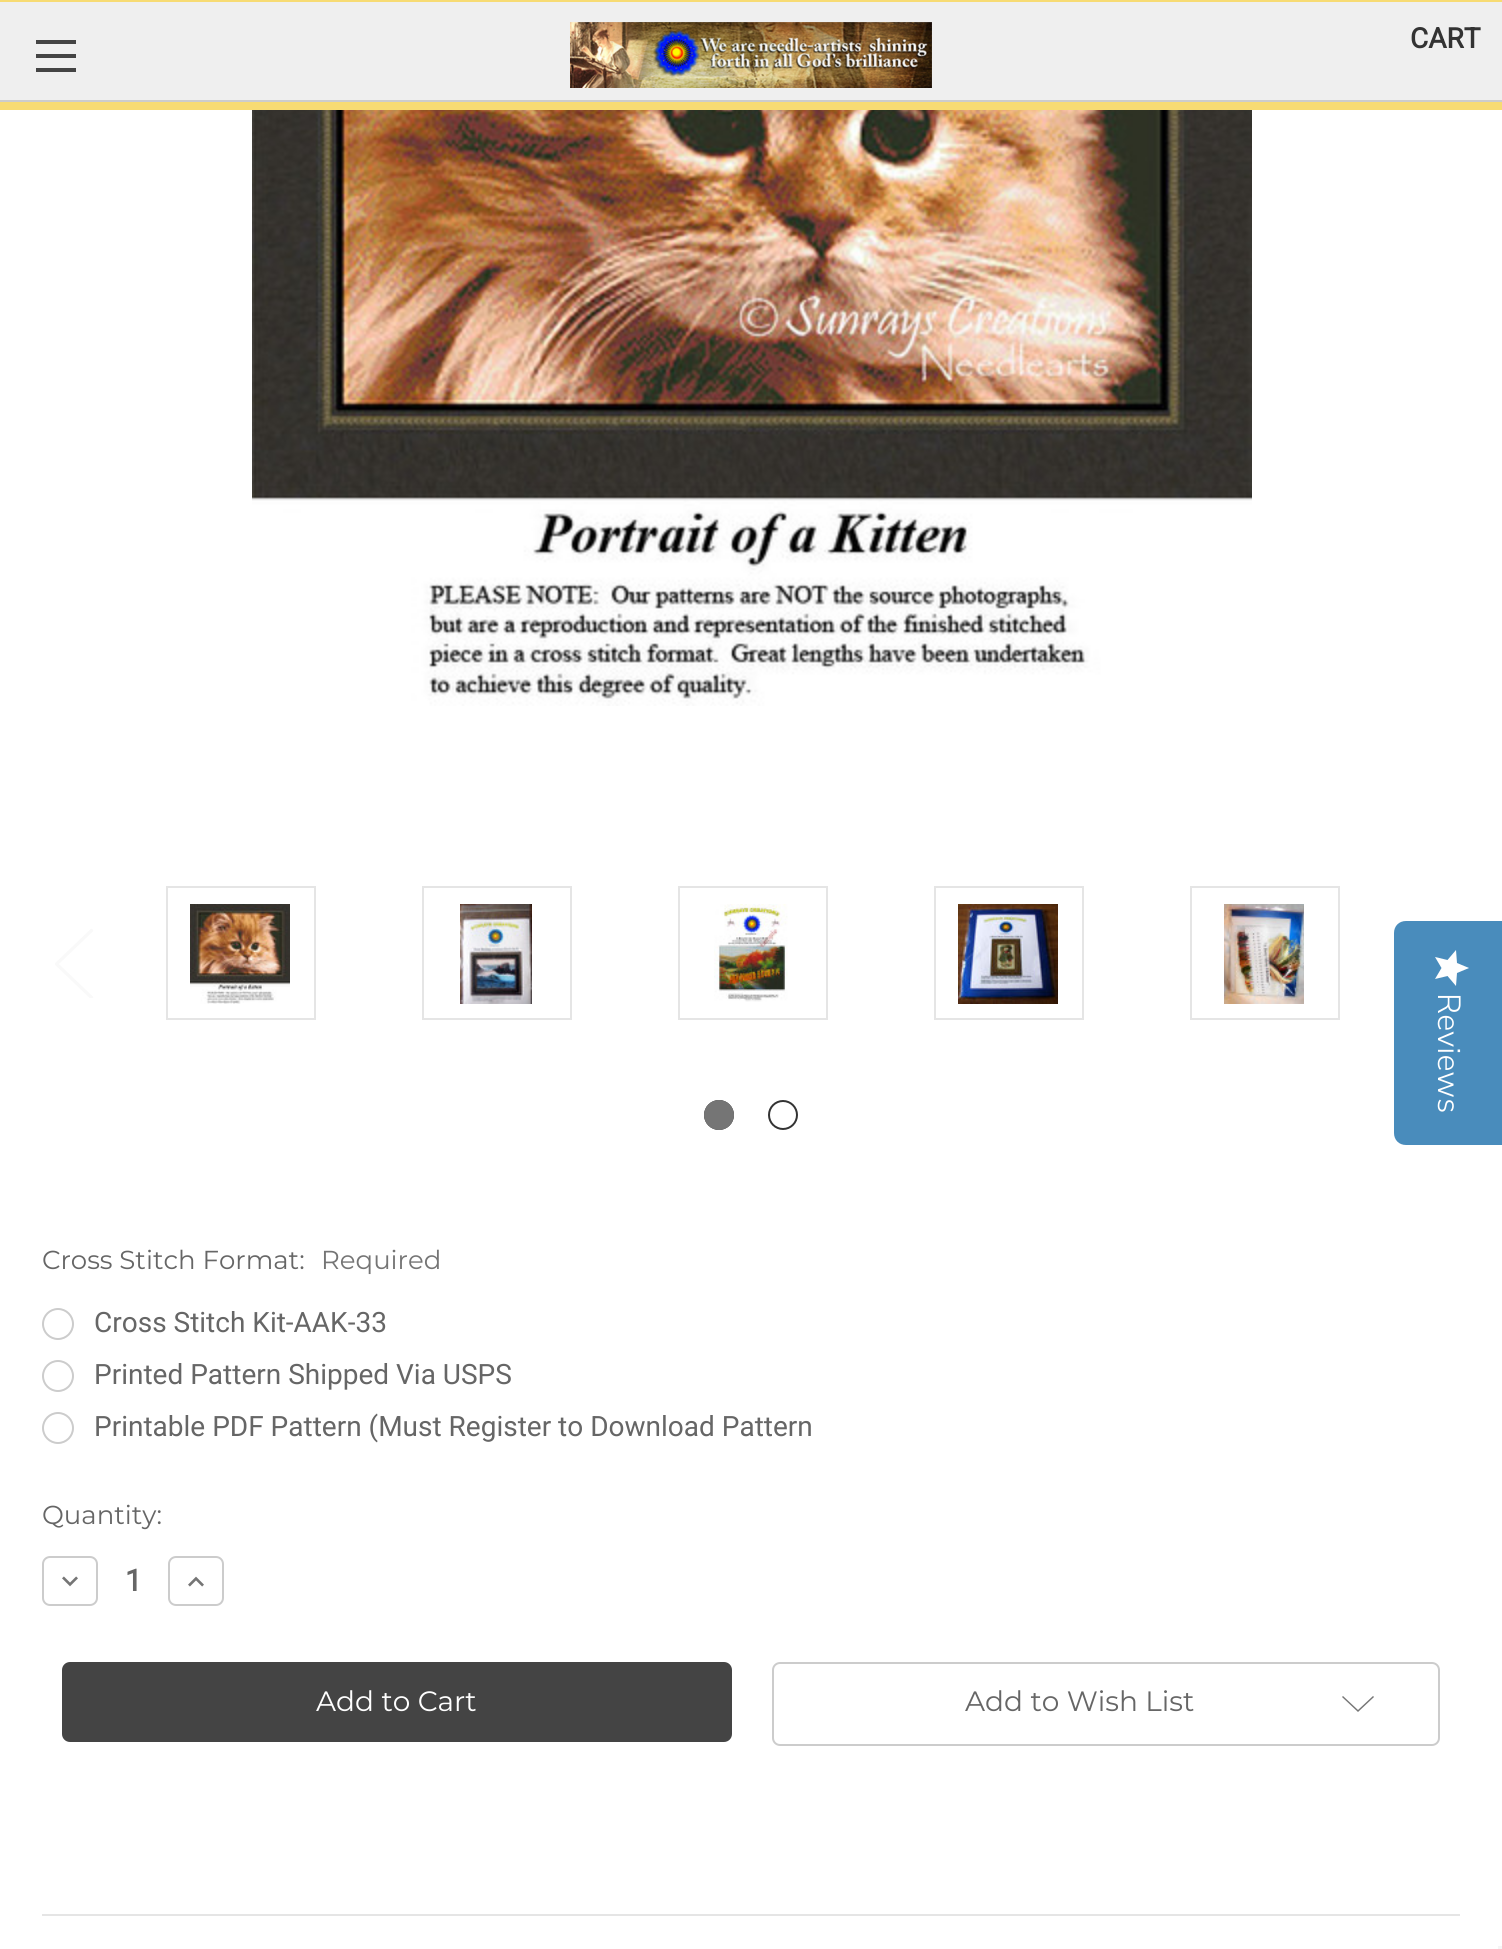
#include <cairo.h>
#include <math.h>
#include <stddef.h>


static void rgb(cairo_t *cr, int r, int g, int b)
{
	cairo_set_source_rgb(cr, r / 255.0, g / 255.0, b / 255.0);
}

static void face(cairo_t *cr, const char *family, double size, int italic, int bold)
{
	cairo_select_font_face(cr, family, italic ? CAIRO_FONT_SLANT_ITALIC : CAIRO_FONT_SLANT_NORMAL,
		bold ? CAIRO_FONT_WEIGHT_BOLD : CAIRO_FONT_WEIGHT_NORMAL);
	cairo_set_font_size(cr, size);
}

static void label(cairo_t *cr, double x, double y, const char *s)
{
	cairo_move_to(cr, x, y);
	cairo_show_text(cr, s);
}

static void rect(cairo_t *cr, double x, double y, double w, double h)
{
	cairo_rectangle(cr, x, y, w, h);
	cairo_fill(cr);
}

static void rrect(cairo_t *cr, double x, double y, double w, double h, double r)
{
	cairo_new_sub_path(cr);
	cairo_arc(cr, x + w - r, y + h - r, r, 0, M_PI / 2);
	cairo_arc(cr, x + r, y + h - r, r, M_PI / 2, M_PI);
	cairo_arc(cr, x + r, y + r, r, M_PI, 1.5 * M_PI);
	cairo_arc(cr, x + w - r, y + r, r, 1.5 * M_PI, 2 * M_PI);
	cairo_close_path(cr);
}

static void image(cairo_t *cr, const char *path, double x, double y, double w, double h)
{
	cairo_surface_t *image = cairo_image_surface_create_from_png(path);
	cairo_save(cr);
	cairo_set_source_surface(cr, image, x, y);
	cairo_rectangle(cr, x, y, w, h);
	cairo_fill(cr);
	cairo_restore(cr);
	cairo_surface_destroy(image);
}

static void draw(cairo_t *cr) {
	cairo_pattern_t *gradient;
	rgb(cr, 255, 255, 255);
	cairo_paint(cr);
	rgb(cr, 247, 219, 115);
	rect(cr, 0, 0, 1502, 110);
	rgb(cr, 239, 239, 239);
	rect(cr, 0, 2, 1502, 98);
	rgb(cr, 68, 68, 68);
	rect(cr, 36, 54, 40, 4);
	rect(cr, 36, 40, 40, 4);
	rect(cr, 36, 68, 40, 4);
	image(cr, "image0.png", 570, 22, 362, 66);
	rgb(cr, 204, 204, 204);
	rect(cr, 0, 100, 1502, 2);
	face(cr, "Roboto", 28, 0, 1);
	rgb(cr, 51, 51, 51);
	label(cr, 1410, 48, "CART");
	rgb(cr, 73, 140, 188);
	cairo_new_path(cr);
	cairo_move_to(cr, 1502, 921);
	cairo_line_to(cr, 1502, 1145);
	cairo_line_to(cr, 1406, 1145);
	cairo_curve_to(cr, 1399, 1145, 1394, 1140, 1394, 1133);
	cairo_line_to(cr, 1394, 933);
	cairo_curve_to(cr, 1394, 926, 1399, 921, 1406, 921);
	cairo_close_path(cr);
	cairo_fill(cr);
	gradient = cairo_pattern_create_linear(1469, 950, 1469, 986);
	cairo_pattern_add_color_stop_rgba(gradient, 1, 0.996, 0.996, 0.996, 1);
	cairo_pattern_add_color_stop_rgba(gradient, 1, 0.918, 0.918, 0.918, 1);
	cairo_set_source(cr, gradient);
	cairo_pattern_destroy(gradient);
	cairo_new_path(cr);
	cairo_move_to(cr, 1441.5, 968);
	cairo_line_to(cr, 1435, 979);
	cairo_line_to(cr, 1447.5, 976);
	cairo_line_to(cr, 1456, 986);
	cairo_line_to(cr, 1457, 973);
	cairo_line_to(cr, 1469, 968);
	cairo_line_to(cr, 1457, 963);
	cairo_line_to(cr, 1456, 950);
	cairo_line_to(cr, 1447.5, 960);
	cairo_line_to(cr, 1435, 957);
	cairo_close_path(cr);
	cairo_fill(cr);
	face(cr, "Nunito Sans Light", 32, 0, 0);
	rgb(cr, 255, 255, 255);
	cairo_save(cr);
	cairo_translate(cr, 1438, 993);
	cairo_rotate(cr, 90 * M_PI / 180);
	label(cr, 0, 0, "Reviews");
	cairo_restore(cr);
	image(cr, "image1.png", 252, 110, 1000, 596);
	cairo_save(cr);
	cairo_rectangle(cr, 54, 928, 40, 70);
	cairo_clip(cr);
	cairo_new_path(cr);
	cairo_move_to(cr, 91.5, 930.5);
	cairo_line_to(cr, 56.5, 964);
	cairo_line_to(cr, 91.5, 997.5);
	rgb(cr, 249, 249, 249);
	cairo_set_line_width(cr, 3.3);
	cairo_set_line_cap(cr, CAIRO_LINE_CAP_ROUND);
	cairo_set_line_join(cr, CAIRO_LINE_JOIN_ROUND);
	cairo_stroke(cr);
	cairo_restore(cr);
	cairo_rectangle(cr, 167, 887, 148, 132);
	rgb(cr, 229, 229, 229);
	cairo_stroke(cr);
	image(cr, "image2.png", 190, 904, 100, 100);
	cairo_rectangle(cr, 423, 887, 148, 132);
	cairo_stroke(cr);
	image(cr, "image3.png", 460, 904, 72, 100);
	cairo_rectangle(cr, 679, 887, 148, 132);
	cairo_stroke(cr);
	image(cr, "image4.png", 714, 904, 74, 98);
	cairo_rectangle(cr, 935, 887, 148, 132);
	cairo_stroke(cr);
	image(cr, "image5.png", 958, 904, 100, 100);
	cairo_rectangle(cr, 1191, 887, 148, 132);
	cairo_stroke(cr);
	image(cr, "image6.png", 1224, 904, 80, 100);
	cairo_arc(cr, 719, 1115, 14, 0, 2 * M_PI);
	rgb(cr, 51, 51, 51);
	cairo_stroke(cr);
	rgb(cr, 117, 117, 117);
	cairo_arc(cr, 719, 1115, 15, 0, 2 * M_PI);
	cairo_fill(cr);
	cairo_arc(cr, 783, 1115, 14, 0, 2 * M_PI);
	rgb(cr, 51, 51, 51);
	cairo_stroke(cr);
	face(cr, "Montserrat Thin", 26, 0, 0);
	rgb(cr, 102, 102, 102);
	label(cr, 42, 1269, "Cross Stitch Format:");
	rgb(cr, 117, 117, 117);
	label(cr, 321, 1269, "Required");
	cairo_new_path(cr);
	cairo_arc(cr, 58, 1324, 15, 0, 2 * M_PI);
	rgb(cr, 204, 204, 204);
	cairo_stroke(cr);
	face(cr, "Roboto", 28, 0, 0);
	rgb(cr, 102, 102, 102);
	label(cr, 94, 1332, "Cross Stitch Kit-AAK-33");
	cairo_new_path(cr);
	cairo_arc(cr, 58, 1376, 15, 0, 2 * M_PI);
	rgb(cr, 204, 204, 204);
	cairo_stroke(cr);
	rgb(cr, 102, 102, 102);
	label(cr, 94, 1384, "Printed Pattern Shipped Via USPS");
	cairo_new_path(cr);
	cairo_arc(cr, 58, 1428, 15, 0, 2 * M_PI);
	rgb(cr, 204, 204, 204);
	cairo_stroke(cr);
	rgb(cr, 102, 102, 102);
	label(cr, 94, 1436, "Printable PDF Pattern (Must Register to Download Pattern");
	face(cr, "Montserrat Thin", 26, 0, 0);
	label(cr, 42, 1524, "Quantity:");
	rrect(cr, 43, 1557, 54, 48, 7);
	rgb(cr, 204, 204, 204);
	cairo_stroke(cr);
	image(cr, "image7.png", 62, 1576, 16, 11);
	face(cr, "Roboto", 30, 0, 1);
	rgb(cr, 102, 102, 102);
	label(cr, 125, 1591, "1");
	rrect(cr, 169, 1557, 54, 48, 7);
	rgb(cr, 204, 204, 204);
	cairo_stroke(cr);
	image(cr, "image8.png", 188, 1576, 16, 11);
	rgb(cr, 68, 68, 68);
	rrect(cr, 63, 1663, 668, 78, 7);
	cairo_fill_preserve(cr);
	cairo_stroke(cr);
	face(cr, "Montserrat Thin", 28, 0, 0);
	rgb(cr, 255, 255, 255);
	label(cr, 316, 1711, "Add to Cart");
	rrect(cr, 773, 1663, 666, 82, 7);
	rgb(cr, 204, 204, 204);
	cairo_stroke(cr);
	rgb(cr, 102, 102, 102);
	label(cr, 965, 1711, "Add to Wish List");
	rgb(cr, 117, 117, 117);
	cairo_set_fill_rule(cr, CAIRO_FILL_RULE_EVEN_ODD);
	cairo_new_path(cr);
	cairo_move_to(cr, 1358, 1710);
	cairo_line_to(cr, 1373, 1696);
	cairo_line_to(cr, 1374, 1697);
	cairo_line_to(cr, 1358, 1712);
	cairo_line_to(cr, 1342, 1697);
	cairo_line_to(cr, 1343, 1696);
	cairo_close_path(cr);
	cairo_fill(cr);
	rgb(cr, 229, 229, 229);
	rect(cr, 42, 1914, 1418, 2);
	rgb(cr, 245, 245, 245);
	rect(cr, 1498, 1946, 4, 3);
}

int main(void) {
	cairo_surface_t *surface = cairo_image_surface_create(CAIRO_FORMAT_RGB24, 1502, 1949);
	cairo_t *cr = cairo_create(surface);
	cairo_font_options_t *options = cairo_font_options_create();
	cairo_font_options_set_hint_metrics(options, CAIRO_HINT_METRICS_OFF);
	cairo_font_options_set_hint_style(options, CAIRO_HINT_STYLE_NONE);
	cairo_set_font_options(cr, options);
	cairo_set_miter_limit(cr, 4);
	draw(cr);
	cairo_surface_write_to_png(surface, "render.png");
	cairo_font_options_destroy(options);
	cairo_destroy(cr);
	cairo_surface_destroy(surface);
	return 0;
}
